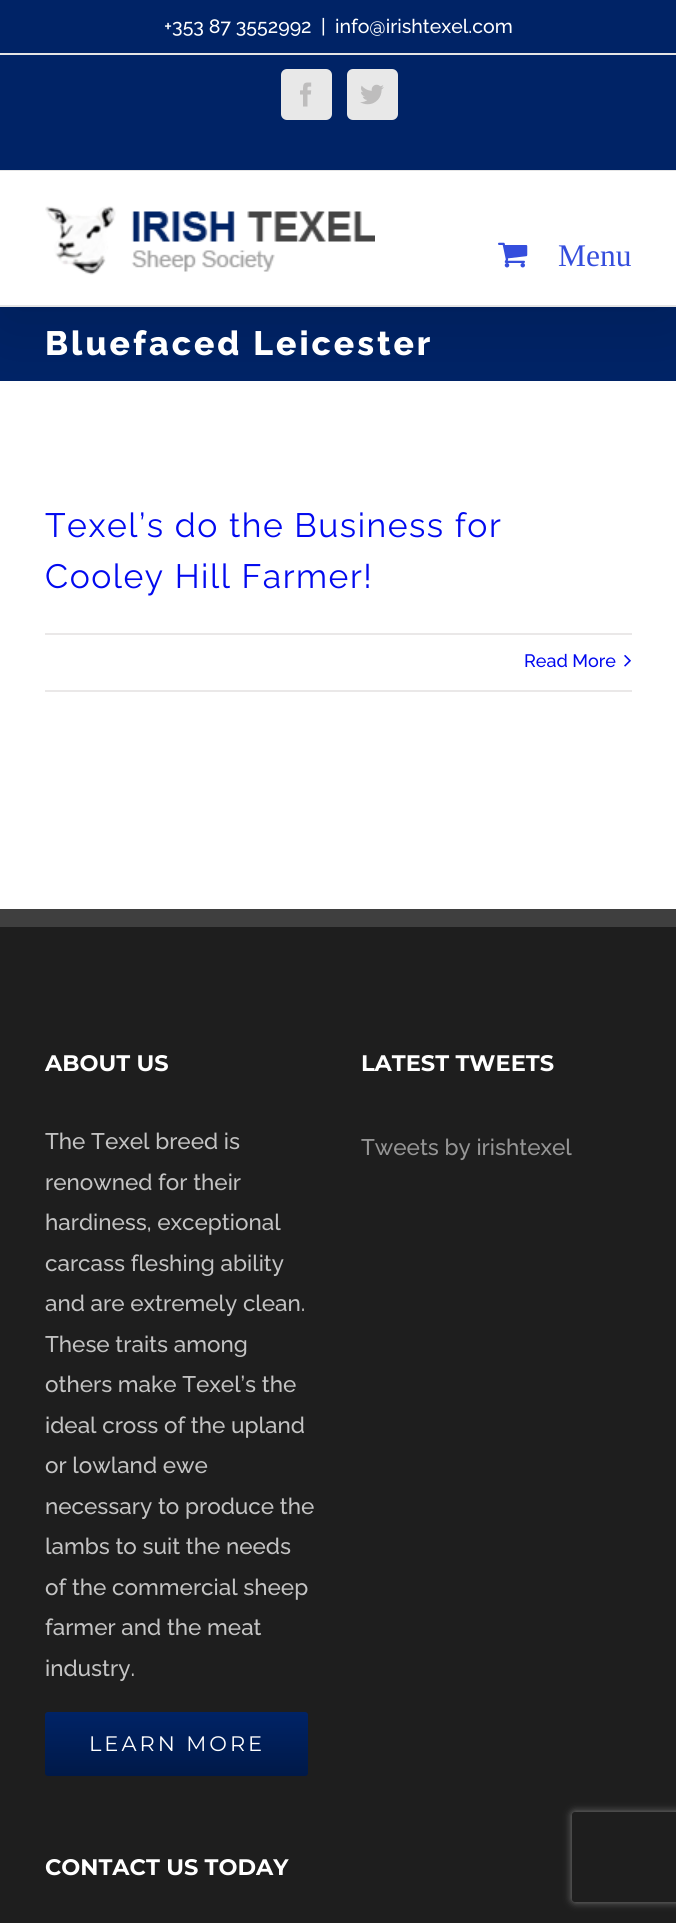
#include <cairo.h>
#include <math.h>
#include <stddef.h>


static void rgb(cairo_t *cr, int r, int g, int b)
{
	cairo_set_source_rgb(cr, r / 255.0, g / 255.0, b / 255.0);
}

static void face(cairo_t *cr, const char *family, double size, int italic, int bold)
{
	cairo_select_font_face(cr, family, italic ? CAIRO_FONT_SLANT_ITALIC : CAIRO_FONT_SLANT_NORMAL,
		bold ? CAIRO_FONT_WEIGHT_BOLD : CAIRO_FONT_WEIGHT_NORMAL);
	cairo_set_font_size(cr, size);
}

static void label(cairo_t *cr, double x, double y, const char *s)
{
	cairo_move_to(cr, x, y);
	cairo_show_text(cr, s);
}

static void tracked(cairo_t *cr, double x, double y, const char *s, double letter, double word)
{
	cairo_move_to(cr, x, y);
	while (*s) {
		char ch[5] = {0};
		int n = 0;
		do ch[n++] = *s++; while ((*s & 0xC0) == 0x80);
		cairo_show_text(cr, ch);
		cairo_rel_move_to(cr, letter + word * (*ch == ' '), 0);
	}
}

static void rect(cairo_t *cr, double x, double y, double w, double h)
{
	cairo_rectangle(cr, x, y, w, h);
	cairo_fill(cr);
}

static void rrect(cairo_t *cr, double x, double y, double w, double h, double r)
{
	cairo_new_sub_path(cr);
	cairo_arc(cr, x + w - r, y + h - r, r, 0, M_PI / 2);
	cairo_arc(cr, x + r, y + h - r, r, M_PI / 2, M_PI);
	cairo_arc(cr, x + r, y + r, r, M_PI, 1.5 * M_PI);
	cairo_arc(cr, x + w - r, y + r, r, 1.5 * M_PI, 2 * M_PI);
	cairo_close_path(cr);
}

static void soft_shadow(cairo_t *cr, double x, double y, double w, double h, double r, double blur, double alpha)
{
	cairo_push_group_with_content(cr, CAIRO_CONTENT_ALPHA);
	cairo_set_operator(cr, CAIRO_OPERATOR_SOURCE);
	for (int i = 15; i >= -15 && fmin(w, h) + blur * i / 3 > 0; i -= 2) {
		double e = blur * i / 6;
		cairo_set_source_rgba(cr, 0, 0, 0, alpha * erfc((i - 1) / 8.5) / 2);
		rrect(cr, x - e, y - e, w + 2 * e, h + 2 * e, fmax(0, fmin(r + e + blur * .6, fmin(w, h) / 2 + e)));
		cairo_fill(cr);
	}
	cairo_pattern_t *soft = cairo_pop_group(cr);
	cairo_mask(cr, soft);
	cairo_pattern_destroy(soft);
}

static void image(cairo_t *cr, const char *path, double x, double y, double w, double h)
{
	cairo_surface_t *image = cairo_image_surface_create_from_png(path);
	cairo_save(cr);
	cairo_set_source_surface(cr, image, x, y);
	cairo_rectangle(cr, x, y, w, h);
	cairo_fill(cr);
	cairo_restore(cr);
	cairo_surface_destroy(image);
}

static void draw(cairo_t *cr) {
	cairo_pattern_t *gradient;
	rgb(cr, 255, 255, 255);
	cairo_paint(cr);
	rgb(cr, 0, 35, 102);
	rect(cr, 0, 307, 676, 74);
	rgb(cr, 0, 0, 0);
	soft_shadow(cr, 3, 18, 671, 300, 0, 37.5, 0.14);
	rgb(cr, 0, 35, 102);
	rect(cr, 0, 0, 676, 170);
	rgb(cr, 229, 229, 229);
	rect(cr, 0, 170, 676, 1);
	rect(cr, 0, 53, 676, 2);
	face(cr, "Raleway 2 Thin", 19.5, 0, 0);
	rgb(cr, 255, 255, 255);
	label(cr, 164, 33, "+353 87 3552992");
	label(cr, 321, 33, "|");
	label(cr, 335, 33, "info@irishtexel.com");
	rgb(cr, 232, 232, 232);
	rrect(cr, 282, 70, 49, 49, 5);
	cairo_fill_preserve(cr);
	cairo_stroke(cr);
	image(cr, "image0.png", 300, 82, 12, 25);
	rrect(cr, 348, 70, 49, 49, 5);
	cairo_fill_preserve(cr);
	cairo_stroke(cr);
	image(cr, "image1.png", 360, 84, 24, 21);
	rgb(cr, 255, 255, 255);
	rect(cr, 0, 171, 676, 134);
	rgb(cr, 229, 229, 229);
	rect(cr, 0, 305, 676, 2);
	image(cr, "image2.png", 45, 206, 330, 69);
	image(cr, "image3.png", 498, 242, 30, 26);
	face(cr, "Liberation Serif", 31.5, 0, 0);
	rgb(cr, 53, 78, 221);
	label(cr, 558, 266, "Menu");
	face(cr, "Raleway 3 Thin", 33.75, 0, 0);
	rgb(cr, 255, 255, 255);
	tracked(cr, 45, 355, "Bluefaced Leicester", 3, 0);
	face(cr, "Raleway Thin", 33.75, 0, 0);
	rgb(cr, 2, 10, 239);
	tracked(cr, 45, 537, "Texel’s do the Business for", 1.5, 0);
	tracked(cr, 45, 588, "Cooley Hill Farmer!", 1.5, 0);
	rgb(cr, 234, 232, 232);
	rect(cr, 45, 633, 587, 2);
	rect(cr, 45, 690, 587, 2);
	face(cr, "Raleway 2 Thin", 18, 0, 0);
	rgb(cr, 2, 10, 239);
	label(cr, 524, 667, "Read More");
	image(cr, "image4.png", 624, 655, 7, 12);
	rgb(cr, 30, 30, 30);
	rect(cr, 0, 927, 676, 996);
	rgb(cr, 63, 63, 63);
	rect(cr, 0, 909, 676, 18);
	face(cr, "Montserrat Thin", 22.5, 0, 0);
	rgb(cr, 255, 255, 255);
	label(cr, 45, 1071, "ABOUT US");
	face(cr, "Raleway 2 Thin", 22.5, 0, 0);
	rgb(cr, 196, 196, 196);
	label(cr, 45, 1149, "The Texel breed is");
	label(cr, 45, 1190, "renowned for their");
	label(cr, 45, 1230, "hardiness, exceptional");
	label(cr, 45, 1271, "carcass fleshing ability");
	label(cr, 45, 1311, "and are extremely clean.");
	label(cr, 45, 1352, "These traits among");
	label(cr, 45, 1392, "others make Texel’s the");
	label(cr, 45, 1433, "ideal cross of the upland");
	label(cr, 45, 1473, "or lowland ewe");
	label(cr, 45, 1514, "necessary to produce the");
	label(cr, 45, 1554, "lambs to suit the needs");
	label(cr, 45, 1595, "of the commercial sheep");
	label(cr, 45, 1635, "farmer and the meat");
	label(cr, 45, 1676, "industry.");
	gradient = cairo_pattern_create_linear(176, 1776, 176, 1712);
	cairo_pattern_add_color_stop_rgba(gradient, 0, 0, 0.098, 0.282, 1);
	cairo_pattern_add_color_stop_rgba(gradient, 1, 0, 0.137, 0.4, 1);
	cairo_set_source(cr, gradient);
	cairo_pattern_destroy(gradient);
	rrect(cr, 45, 1712, 263, 64, 3);
	cairo_fill(cr);
	face(cr, "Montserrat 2 Thin", 21, 0, 0);
	rgb(cr, 255, 255, 255);
	tracked(cr, 89, 1751, "LEARN MORE", 3, 0);
	face(cr, "Montserrat Thin", 22.5, 0, 0);
	label(cr, 361, 1071, "LATEST TWEETS");
	face(cr, "Raleway 2 Thin", 22.5, 0, 0);
	rgb(cr, 150, 150, 150);
	label(cr, 361, 1155, "Tweets by irishtexel");
	face(cr, "Montserrat Thin", 22.5, 0, 0);
	rgb(cr, 255, 255, 255);
	label(cr, 45, 1875, "CONTACT US TODAY");
	cairo_save(cr);
	cairo_set_fill_rule(cr, CAIRO_FILL_RULE_EVEN_ODD);
	cairo_new_path(cr);
	cairo_move_to(cr, 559, 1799);
	cairo_line_to(cr, 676, 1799);
	cairo_line_to(cr, 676, 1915);
	cairo_line_to(cr, 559, 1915);
	cairo_close_path(cr);
	cairo_move_to(cr, 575, 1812);
	cairo_line_to(cr, 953, 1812);
	cairo_curve_to(cr, 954.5, 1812, 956, 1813.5, 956, 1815);
	cairo_line_to(cr, 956, 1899);
	cairo_curve_to(cr, 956, 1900.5, 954.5, 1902, 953, 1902);
	cairo_line_to(cr, 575, 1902);
	cairo_curve_to(cr, 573.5, 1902, 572, 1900.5, 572, 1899);
	cairo_line_to(cr, 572, 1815);
	cairo_curve_to(cr, 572, 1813.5, 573.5, 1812, 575, 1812);
	cairo_close_path(cr);
	cairo_clip(cr);
	rgb(cr, 128, 128, 128);
	soft_shadow(cr, 572, 1812, 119, 90, 3, 4, 1);
	cairo_restore(cr);
}

int main(void) {
	cairo_surface_t *surface = cairo_image_surface_create(CAIRO_FORMAT_RGB24, 676, 1923);
	cairo_t *cr = cairo_create(surface);
	cairo_font_options_t *options = cairo_font_options_create();
	cairo_font_options_set_hint_metrics(options, CAIRO_HINT_METRICS_OFF);
	cairo_font_options_set_hint_style(options, CAIRO_HINT_STYLE_NONE);
	cairo_set_font_options(cr, options);
	cairo_set_miter_limit(cr, 4);
	draw(cr);
	cairo_surface_write_to_png(surface, "render.png");
	cairo_font_options_destroy(options);
	cairo_destroy(cr);
	cairo_surface_destroy(surface);
	return 0;
}
